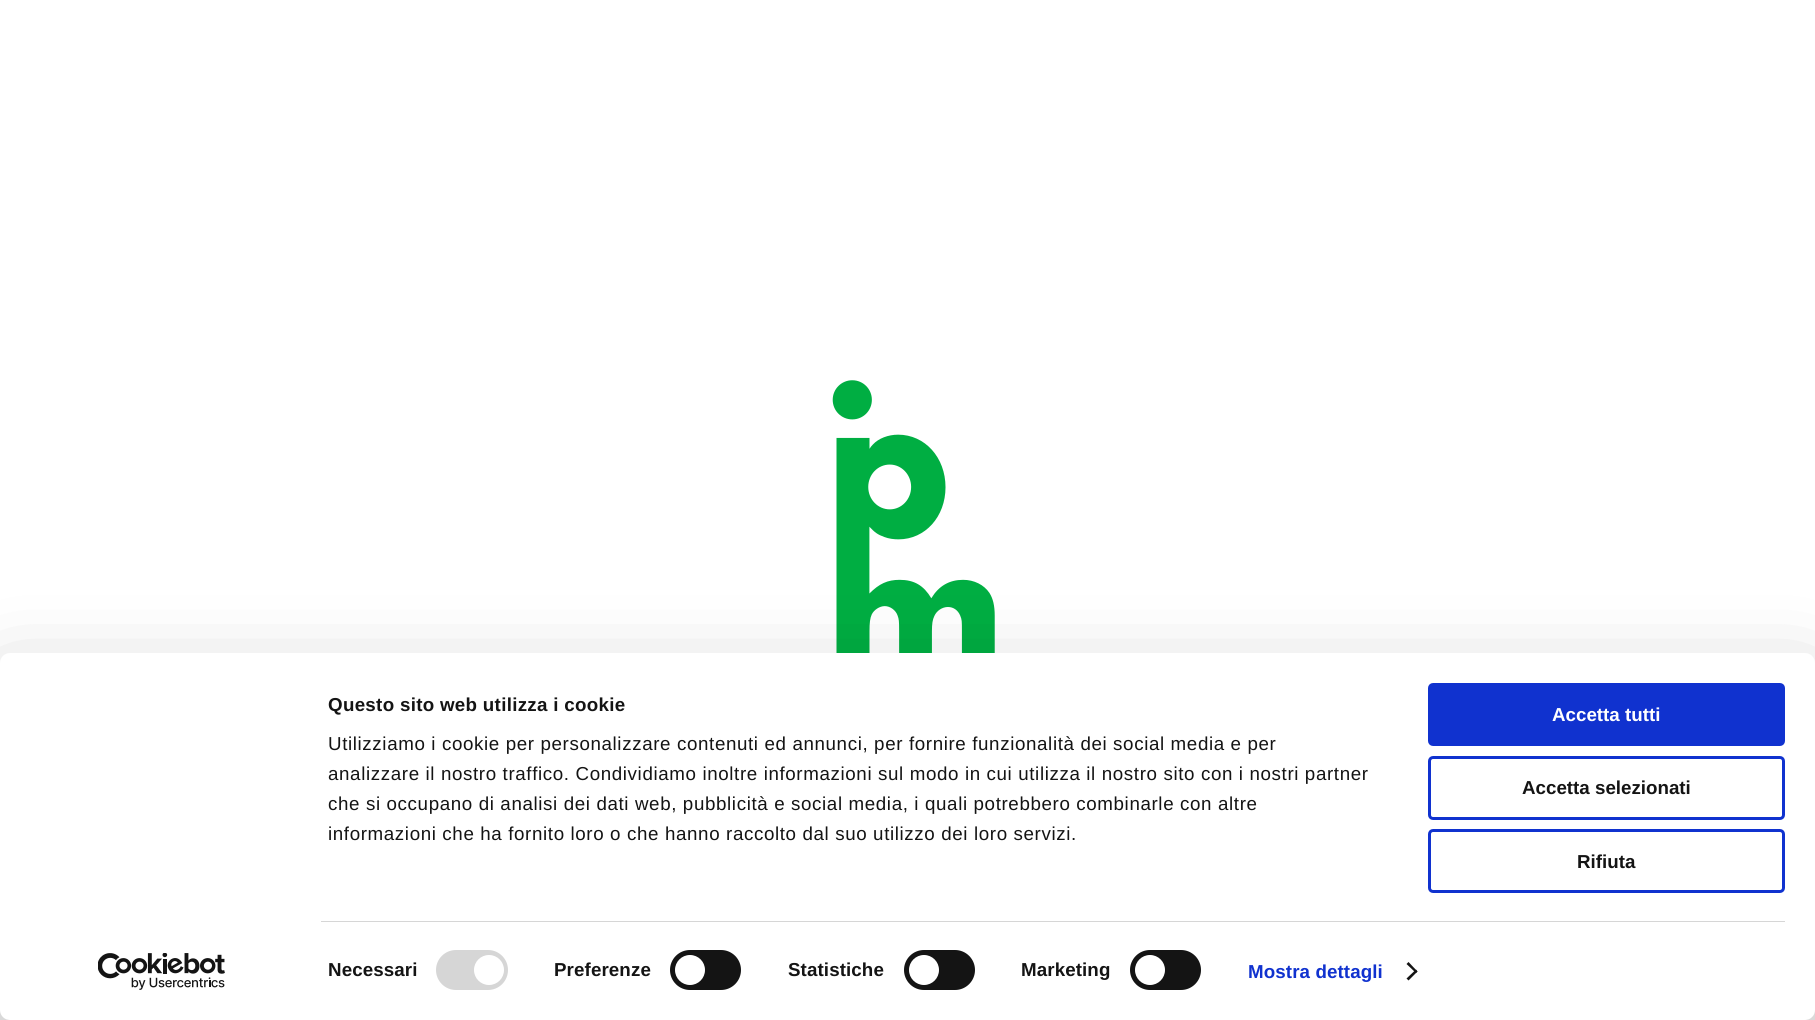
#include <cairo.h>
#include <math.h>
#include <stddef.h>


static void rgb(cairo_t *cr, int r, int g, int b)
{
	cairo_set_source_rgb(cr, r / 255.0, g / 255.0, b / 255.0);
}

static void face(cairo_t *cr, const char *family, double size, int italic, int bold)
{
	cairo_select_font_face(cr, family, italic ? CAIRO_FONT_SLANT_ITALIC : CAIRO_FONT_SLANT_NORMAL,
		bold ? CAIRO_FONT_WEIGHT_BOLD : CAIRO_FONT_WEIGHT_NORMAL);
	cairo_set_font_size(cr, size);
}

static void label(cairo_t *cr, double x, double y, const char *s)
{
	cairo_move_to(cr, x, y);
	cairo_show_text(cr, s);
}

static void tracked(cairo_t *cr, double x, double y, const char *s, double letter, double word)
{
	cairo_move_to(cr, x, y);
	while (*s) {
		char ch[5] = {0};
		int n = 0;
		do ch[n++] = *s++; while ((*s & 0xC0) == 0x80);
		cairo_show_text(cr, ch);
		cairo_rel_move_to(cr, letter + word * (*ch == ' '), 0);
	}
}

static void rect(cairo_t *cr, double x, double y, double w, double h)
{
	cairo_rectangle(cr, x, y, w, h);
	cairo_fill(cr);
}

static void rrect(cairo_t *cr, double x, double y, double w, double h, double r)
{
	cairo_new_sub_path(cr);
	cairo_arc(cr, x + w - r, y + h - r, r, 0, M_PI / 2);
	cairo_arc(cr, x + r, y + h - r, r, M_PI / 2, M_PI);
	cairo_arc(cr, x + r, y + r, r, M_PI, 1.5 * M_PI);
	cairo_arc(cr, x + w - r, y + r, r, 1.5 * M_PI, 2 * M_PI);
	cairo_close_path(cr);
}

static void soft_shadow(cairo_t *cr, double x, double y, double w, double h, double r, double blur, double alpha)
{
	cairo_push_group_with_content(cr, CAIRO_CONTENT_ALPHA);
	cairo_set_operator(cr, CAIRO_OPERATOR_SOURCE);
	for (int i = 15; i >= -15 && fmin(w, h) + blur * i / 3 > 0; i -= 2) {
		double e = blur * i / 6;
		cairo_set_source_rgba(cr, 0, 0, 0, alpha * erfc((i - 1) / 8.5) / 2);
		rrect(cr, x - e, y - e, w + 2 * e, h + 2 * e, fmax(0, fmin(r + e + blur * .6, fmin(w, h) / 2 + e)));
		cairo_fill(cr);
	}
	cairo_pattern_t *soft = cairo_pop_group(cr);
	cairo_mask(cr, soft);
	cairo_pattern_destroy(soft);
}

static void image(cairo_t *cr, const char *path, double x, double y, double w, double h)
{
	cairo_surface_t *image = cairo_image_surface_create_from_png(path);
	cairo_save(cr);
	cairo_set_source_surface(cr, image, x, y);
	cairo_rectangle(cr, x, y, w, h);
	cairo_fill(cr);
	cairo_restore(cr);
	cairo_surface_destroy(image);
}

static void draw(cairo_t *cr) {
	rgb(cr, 255, 255, 255);
	cairo_paint(cr);
	image(cr, "image0.png", 832, 380, 163, 273);
	rgb(cr, 0, 0, 0);
	soft_shadow(cr, 0, 690, 1815, 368, 10, 44, 0.3);
	rgb(cr, 255, 255, 255);
	rrect(cr, 0, 653, 1815, 367, 10);
	cairo_fill(cr);
	face(cr, "Liberation Sans", 18.75, 0, 1);
	rgb(cr, 20, 20, 20);
	tracked(cr, 328, 711, "Questo sito web utilizza i cookie", 0.3, 0);
	face(cr, "Liberation Sans", 18.75, 0, 0);
	tracked(cr, 328, 750, "Utilizziamo i cookie per personalizzare contenuti ed annunci, per fornire funzionalità dei social media e per", 0.62, 0);
	tracked(cr, 328, 780, "analizzare il nostro traffico. Condividiamo inoltre informazioni sul modo in cui utilizza il nostro sito con i nostri partner", 0.62, 0);
	tracked(cr, 328, 810, "che si occupano di analisi dei dati web, pubblicità e social media, i quali potrebbero combinarle con altre", 0.62, 0);
	tracked(cr, 328, 840, "informazioni che ha fornito loro o che hanno raccolto dal suo utilizzo dei loro servizi.", 0.62, 0);
	rgb(cr, 214, 214, 214);
	rect(cr, 321, 921, 1464, 1);
	face(cr, "Liberation Sans", 18.75, 0, 1);
	rgb(cr, 20, 20, 20);
	tracked(cr, 328, 976, "Necessari", 0.1, 0);
	rgb(cr, 214, 214, 214);
	rrect(cr, 436, 950, 72, 40, 20);
	cairo_fill(cr);
	rgb(cr, 255, 255, 255);
	cairo_arc(cr, 489, 970, 15, 0, 2 * M_PI);
	cairo_fill(cr);
	rgb(cr, 20, 20, 20);
	tracked(cr, 554, 976, "Preferenze", 0.1, 0);
	rrect(cr, 670, 950, 71, 40, 20);
	cairo_fill(cr);
	rgb(cr, 255, 255, 255);
	cairo_arc(cr, 690, 970, 15, 0, 2 * M_PI);
	cairo_fill(cr);
	rgb(cr, 20, 20, 20);
	tracked(cr, 788, 976, "Statistiche", 0.1, 0);
	rrect(cr, 904, 950, 71, 40, 20);
	cairo_fill(cr);
	rgb(cr, 255, 255, 255);
	cairo_arc(cr, 924, 970, 15, 0, 2 * M_PI);
	cairo_fill(cr);
	rgb(cr, 20, 20, 20);
	tracked(cr, 1021, 976, "Marketing", 0.1, 0);
	rrect(cr, 1130, 950, 71, 40, 20);
	cairo_fill(cr);
	rgb(cr, 255, 255, 255);
	cairo_arc(cr, 1150, 970, 15, 0, 2 * M_PI);
	cairo_fill(cr);
	rgb(cr, 16, 50, 207);
	tracked(cr, 1248, 978, "Mostra dettagli", 0.1, 0);
	rgb(cr, 20, 20, 20);
	cairo_new_path(cr);
	cairo_move_to(cr, 1408.5, 962);
	cairo_line_to(cr, 1417.5, 971.5);
	cairo_line_to(cr, 1416, 973);
	cairo_line_to(cr, 1406.5, 964);
	cairo_close_path(cr);
	cairo_fill(cr);
	cairo_new_path(cr);
	cairo_move_to(cr, 1416, 969.5);
	cairo_line_to(cr, 1417.5, 971.5);
	cairo_line_to(cr, 1408.5, 980.5);
	cairo_line_to(cr, 1406.5, 978.5);
	cairo_close_path(cr);
	cairo_fill(cr);
	rgb(cr, 16, 50, 207);
	rrect(cr, 1429.5, 684.5, 354, 60, 3.5);
	cairo_fill_preserve(cr);
	cairo_set_line_width(cr, 3);
	cairo_stroke(cr);
	rgb(cr, 255, 255, 255);
	label(cr, 1552, 721, "Accetta tutti");
	rrect(cr, 1429.5, 757.5, 354, 61, 3.5);
	rgb(cr, 16, 50, 207);
	cairo_stroke(cr);
	rgb(cr, 20, 20, 20);
	label(cr, 1522, 794, "Accetta selezionati");
	rrect(cr, 1429.5, 830.5, 354, 61, 3.5);
	rgb(cr, 16, 50, 207);
	cairo_stroke(cr);
	rgb(cr, 20, 20, 20);
	label(cr, 1577, 868, "Rifiuta");
	image(cr, "image1.png", 98, 953, 127, 37);
}

int main(void) {
	cairo_surface_t *surface = cairo_image_surface_create(CAIRO_FORMAT_RGB24, 1815, 1020);
	cairo_t *cr = cairo_create(surface);
	cairo_font_options_t *options = cairo_font_options_create();
	cairo_font_options_set_hint_metrics(options, CAIRO_HINT_METRICS_OFF);
	cairo_font_options_set_hint_style(options, CAIRO_HINT_STYLE_NONE);
	cairo_set_font_options(cr, options);
	cairo_set_miter_limit(cr, 4);
	draw(cr);
	cairo_surface_write_to_png(surface, "render.png");
	cairo_font_options_destroy(options);
	cairo_destroy(cr);
	cairo_surface_destroy(surface);
	return 0;
}
